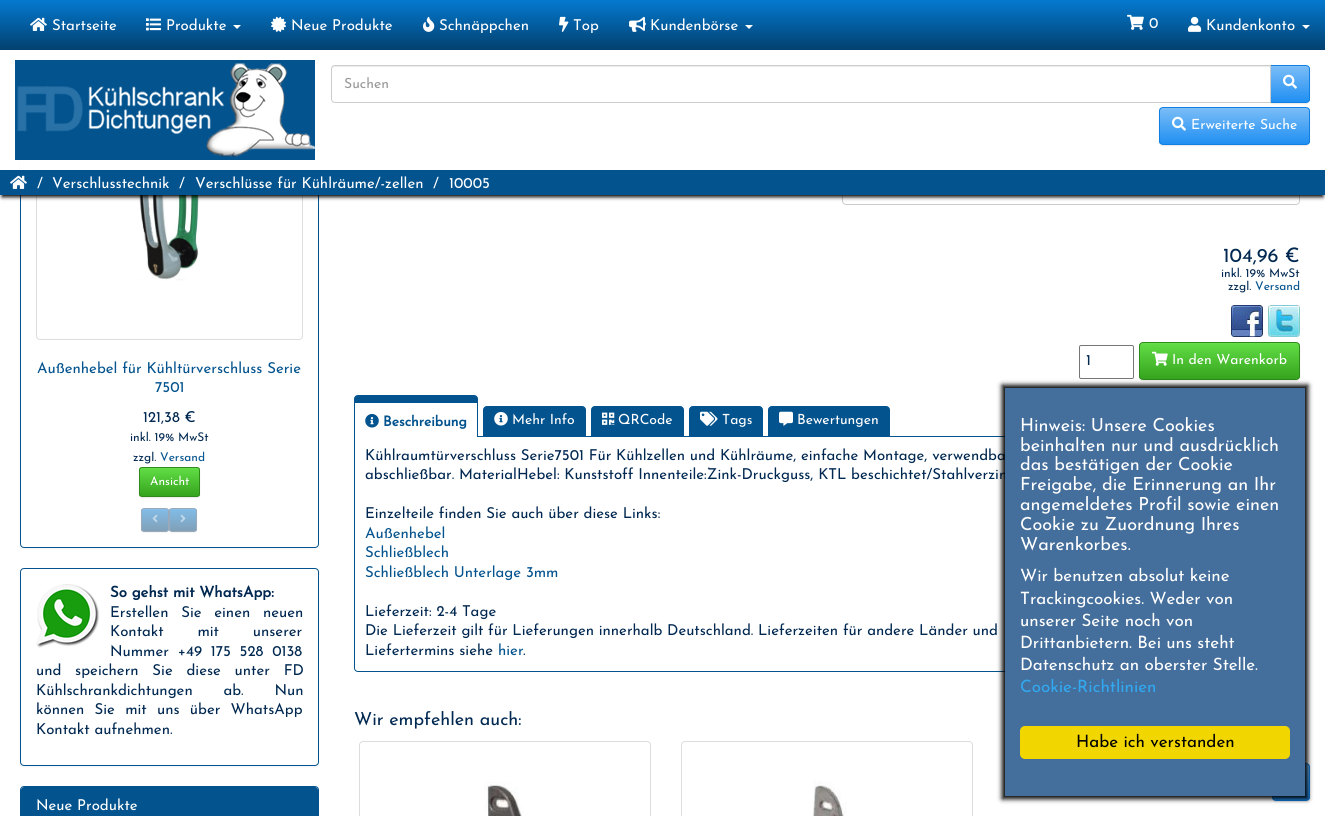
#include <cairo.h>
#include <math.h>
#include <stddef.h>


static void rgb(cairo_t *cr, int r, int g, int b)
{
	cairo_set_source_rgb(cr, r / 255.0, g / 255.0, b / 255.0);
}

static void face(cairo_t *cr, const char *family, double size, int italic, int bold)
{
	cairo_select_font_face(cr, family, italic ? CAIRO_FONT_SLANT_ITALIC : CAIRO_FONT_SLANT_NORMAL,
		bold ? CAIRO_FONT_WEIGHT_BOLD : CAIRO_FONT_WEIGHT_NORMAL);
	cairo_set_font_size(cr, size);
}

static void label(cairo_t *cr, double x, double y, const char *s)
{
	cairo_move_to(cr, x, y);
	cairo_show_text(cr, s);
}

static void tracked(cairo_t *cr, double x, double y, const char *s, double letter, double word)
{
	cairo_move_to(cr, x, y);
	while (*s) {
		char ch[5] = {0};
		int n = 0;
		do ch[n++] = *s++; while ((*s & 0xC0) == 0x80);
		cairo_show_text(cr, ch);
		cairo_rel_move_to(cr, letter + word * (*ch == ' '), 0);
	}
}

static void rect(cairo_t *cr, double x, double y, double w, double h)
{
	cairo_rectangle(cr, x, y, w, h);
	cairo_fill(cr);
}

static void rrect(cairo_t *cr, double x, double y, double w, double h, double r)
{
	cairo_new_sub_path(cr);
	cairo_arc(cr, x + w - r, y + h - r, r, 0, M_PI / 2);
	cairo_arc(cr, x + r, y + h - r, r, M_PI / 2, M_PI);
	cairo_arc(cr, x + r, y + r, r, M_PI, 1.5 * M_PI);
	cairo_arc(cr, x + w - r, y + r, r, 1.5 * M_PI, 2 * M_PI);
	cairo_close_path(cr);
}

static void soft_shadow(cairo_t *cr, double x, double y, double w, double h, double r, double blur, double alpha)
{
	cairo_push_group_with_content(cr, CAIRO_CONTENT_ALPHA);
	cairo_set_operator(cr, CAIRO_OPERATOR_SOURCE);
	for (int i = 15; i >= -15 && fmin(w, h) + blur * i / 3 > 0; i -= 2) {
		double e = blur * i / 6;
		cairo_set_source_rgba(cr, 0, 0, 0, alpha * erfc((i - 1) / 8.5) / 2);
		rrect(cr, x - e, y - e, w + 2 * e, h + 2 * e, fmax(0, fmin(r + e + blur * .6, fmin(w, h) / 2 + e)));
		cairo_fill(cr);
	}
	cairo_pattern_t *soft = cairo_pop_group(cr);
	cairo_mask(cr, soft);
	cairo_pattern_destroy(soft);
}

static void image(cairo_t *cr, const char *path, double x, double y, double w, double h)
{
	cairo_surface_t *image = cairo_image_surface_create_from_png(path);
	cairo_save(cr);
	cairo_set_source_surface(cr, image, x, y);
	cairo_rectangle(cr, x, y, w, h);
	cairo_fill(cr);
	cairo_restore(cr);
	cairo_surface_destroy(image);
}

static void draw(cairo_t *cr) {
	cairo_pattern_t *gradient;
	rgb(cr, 255, 255, 255);
	cairo_paint(cr);
	gradient = cairo_pattern_create_linear(663, 0, 663, 50);
	cairo_pattern_add_color_stop_rgba(gradient, 0, 0.016, 0.475, 0.816, 1);
	cairo_pattern_add_color_stop_rgba(gradient, 1, 0.008, 0.255, 0.435, 1);
	cairo_set_source(cr, gradient);
	cairo_pattern_destroy(gradient);
	rect(cr, 0, 0, 1325, 50);
	image(cr, "image0.png", 30, 17, 17, 14);
	face(cr, "Josefin Sans Thin", 15, 0, 0);
	rgb(cr, 255, 255, 255);
	label(cr, 52, 30, "Startseite");
	image(cr, "image1.png", 146, 18, 15, 13);
	label(cr, 166, 30, "Produkte");
	cairo_new_path(cr);
	cairo_move_to(cr, 233, 25);
	cairo_line_to(cr, 241, 25);
	cairo_line_to(cr, 237, 29);
	cairo_close_path(cr);
	cairo_fill(cr);
	image(cr, "image2.png", 271, 16, 15, 16);
	label(cr, 291, 30, "Neue Produkte");
	image(cr, "image3.png", 423, 16, 12, 16);
	label(cr, 439, 30, "Schnäppchen");
	image(cr, "image4.png", 559, 16, 10, 16);
	label(cr, 573, 30, "Top");
	image(cr, "image5.png", 629, 16, 17, 16);
	label(cr, 650, 30, "Kundenbörse");
	cairo_new_path(cr);
	cairo_move_to(cr, 745, 25);
	cairo_line_to(cr, 753, 25);
	cairo_line_to(cr, 749, 29);
	cairo_close_path(cr);
	cairo_fill(cr);
	image(cr, "image6.png", 1127, 14, 17, 16);
	label(cr, 1149, 28, "0");
	image(cr, "image7.png", 1188, 16, 14, 16);
	label(cr, 1206, 30, "Kundenkonto");
	cairo_new_path(cr);
	cairo_move_to(cr, 1302, 25);
	cairo_line_to(cr, 1310, 25);
	cairo_line_to(cr, 1306, 29);
	cairo_close_path(cr);
	cairo_fill(cr);
	rgb(cr, 0, 0, 0);
	soft_shadow(cr, 20, 61, 299, 488, 4, 1, 0.05);
	rgb(cr, 255, 255, 255);
	rrect(cr, 20.5, 60.5, 298, 487, 3.5);
	cairo_fill_preserve(cr);
	rgb(cr, 3, 83, 142);
	cairo_set_line_width(cr, 1);
	cairo_stroke(cr);
	rrect(cr, 36.5, 116.5, 266, 223, 3.5);
	rgb(cr, 221, 221, 221);
	cairo_stroke(cr);
	rrect(cr, 842.5, 167.5, 457, 37, 3.5);
	rgb(cr, 204, 204, 204);
	cairo_stroke(cr);
	rgb(cr, 255, 255, 255);
	rect(cr, 20, 60, 1280, 110);
	image(cr, "image8.png", 15, 60, 300, 100);
	rgb(cr, 0, 0, 0);
	soft_shadow(cr, 1159, 108, 151, 38, 4, 0.5, 0.09);
	cairo_save(cr);
	rrect(cr, 1159, 107, 151, 38, 4);
	cairo_clip(cr);
	gradient = cairo_pattern_create_linear(1235, 108, 1235, 144);
	cairo_pattern_add_color_stop_rgba(gradient, 0, 0.482, 0.741, 0.969, 1);
	cairo_pattern_add_color_stop_rgba(gradient, 1, 0.125, 0.561, 0.949, 1);
	cairo_set_source(cr, gradient);
	cairo_pattern_destroy(gradient);
	rect(cr, 1159, 108, 151, 36);
	cairo_restore(cr);
	cairo_set_source_rgba(cr, 1, 1, 1, 0.05);
	cairo_new_path(cr);
	cairo_move_to(cr, 1163, 109);
	cairo_line_to(cr, 1306, 109);
	cairo_curve_to(cr, 1308, 109, 1309, 110, 1309, 112);
	cairo_curve_to(cr, 1309, 110, 1309, 109, 1307, 108);
	cairo_line_to(cr, 1187, 108);
	cairo_curve_to(cr, 1179, 108, 1160, 103, 1160, 112);
	cairo_curve_to(cr, 1160, 110, 1161, 109, 1163, 109);
	cairo_close_path(cr);
	cairo_fill(cr);
	rgb(cr, 0, 0, 0);
	soft_shadow(cr, 1270, 66, 40, 38, 4, 0.5, 0.09);
	cairo_save(cr);
	cairo_new_path(cr);
	cairo_move_to(cr, 1270, 65);
	cairo_line_to(cr, 1306, 65);
	cairo_curve_to(cr, 1308, 65, 1310, 67, 1310, 69);
	cairo_line_to(cr, 1310, 99);
	cairo_curve_to(cr, 1310, 101, 1308, 103, 1306, 103);
	cairo_line_to(cr, 1270, 103);
	cairo_close_path(cr);
	cairo_clip(cr);
	gradient = cairo_pattern_create_linear(1290, 66, 1290, 102);
	cairo_pattern_add_color_stop_rgba(gradient, 0, 0.482, 0.741, 0.969, 1);
	cairo_pattern_add_color_stop_rgba(gradient, 1, 0.125, 0.561, 0.949, 1);
	cairo_set_source(cr, gradient);
	cairo_pattern_destroy(gradient);
	rect(cr, 1271, 66, 39, 36);
	cairo_restore(cr);
	rgb(cr, 129, 191, 247);
	cairo_new_path(cr);
	cairo_move_to(cr, 1271, 67);
	cairo_line_to(cr, 1306, 67);
	cairo_curve_to(cr, 1308, 67, 1309, 68, 1309, 70);
	cairo_line_to(cr, 1309, 69);
	cairo_curve_to(cr, 1309, 67.5, 1307.5, 66, 1306, 66);
	cairo_line_to(cr, 1271, 66);
	cairo_close_path(cr);
	cairo_fill(cr);
	cairo_new_path(cr);
	cairo_move_to(cr, 1270.5, 65.5);
	cairo_line_to(cr, 1306, 65.5);
	cairo_curve_to(cr, 1308, 65.5, 1309.5, 67, 1309.5, 69);
	cairo_line_to(cr, 1309.5, 99);
	cairo_curve_to(cr, 1309.5, 101, 1308, 102.5, 1306, 102.5);
	cairo_line_to(cr, 1270.5, 102.5);
	cairo_close_path(cr);
	rgb(cr, 14, 128, 229);
	cairo_stroke(cr);
	rgb(cr, 255, 255, 255);
	cairo_new_path(cr);
	cairo_move_to(cr, 335, 65);
	cairo_line_to(cr, 1271, 65);
	cairo_line_to(cr, 1271, 103);
	cairo_line_to(cr, 335, 103);
	cairo_curve_to(cr, 333, 103, 331, 101, 331, 99);
	cairo_line_to(cr, 331, 69);
	cairo_curve_to(cr, 331, 67, 333, 65, 335, 65);
	cairo_close_path(cr);
	cairo_fill(cr);
	rgb(cr, 236, 236, 236);
	cairo_new_path(cr);
	cairo_move_to(cr, 335, 67);
	cairo_line_to(cr, 1270, 67);
	cairo_line_to(cr, 1270, 66);
	cairo_line_to(cr, 335, 66);
	cairo_curve_to(cr, 333, 66, 332, 68, 332, 70);
	cairo_curve_to(cr, 332, 68, 333, 67, 335, 67);
	cairo_close_path(cr);
	cairo_fill(cr);
	cairo_new_path(cr);
	cairo_move_to(cr, 335, 65.5);
	cairo_line_to(cr, 1270.5, 65.5);
	cairo_line_to(cr, 1270.5, 102.5);
	cairo_line_to(cr, 335, 102.5);
	cairo_curve_to(cr, 333, 102.5, 331.5, 101, 331.5, 99);
	cairo_line_to(cr, 331.5, 69);
	cairo_curve_to(cr, 331.5, 67, 333, 65.5, 335, 65.5);
	cairo_close_path(cr);
	rgb(cr, 204, 204, 204);
	cairo_stroke(cr);
	face(cr, "Josefin Sans Thin", 14, 0, 0);
	rgb(cr, 153, 153, 153);
	label(cr, 344, 88, "Suchen");
	image(cr, "image9.png", 1283, 74, 14, 15);
	rrect(cr, 1159.5, 107.5, 150, 37, 3.5);
	rgb(cr, 14, 128, 229);
	cairo_stroke(cr);
	image(cr, "image9.png", 1172, 116, 14, 15);
	rgb(cr, 255, 255, 255);
	label(cr, 1191, 129, "Erweiterte Suche");
	image(cr, "image11.png", 139, 195, 61, 86);
	rgb(cr, 0, 0, 0);
	soft_shadow(cr, 2, 176, 1321, 21, 0, 2, 1);
	rgb(cr, 3, 83, 142);
	rect(cr, 0, 170, 1325, 25);
	image(cr, "image10.png", 10, 175, 17, 14);
	face(cr, "Josefin Sans Thin", 15, 0, 0);
	rgb(cr, 255, 255, 255);
	label(cr, 37, 188, "/");
	label(cr, 52, 188, "Verschlusstechnik");
	label(cr, 179, 188, "/");
	label(cr, 195, 188, "Verschlüsse für Kühlräume/-zellen");
	label(cr, 433, 188, "/");
	label(cr, 449, 188, "10005");
	rgb(cr, 3, 83, 142);
	label(cr, 37, 373, "Außenhebel für Kühltürverschluss Serie");
	label(cr, 155, 392, "7501");
	rgb(cr, 0, 40, 81);
	label(cr, 143, 422, "121,38 €");
	face(cr, "Josefin Sans Thin", 12, 0, 0);
	label(cr, 130, 441, "inkl. 19% MwSt");
	label(cr, 133, 461, "zzgl.");
	rgb(cr, 3, 83, 142);
	label(cr, 160, 461, "Versand");
	rgb(cr, 0, 0, 0);
	soft_shadow(cr, 139, 468, 61, 30, 3, 0.5, 0.09);
	cairo_save(cr);
	rrect(cr, 139, 467, 61, 30, 3);
	cairo_clip(cr);
	gradient = cairo_pattern_create_linear(170, 468, 170, 496);
	cairo_pattern_add_color_stop_rgba(gradient, 0, 0.38, 0.867, 0.271, 1);
	cairo_pattern_add_color_stop_rgba(gradient, 1, 0.212, 0.643, 0.118, 1);
	cairo_set_source(cr, gradient);
	cairo_pattern_destroy(gradient);
	rect(cr, 139, 468, 61, 28);
	cairo_restore(cr);
	rgb(cr, 104, 222, 77);
	cairo_new_path(cr);
	cairo_move_to(cr, 142, 469);
	cairo_line_to(cr, 197, 469);
	cairo_curve_to(cr, 198, 469, 199, 470, 199, 471);
	cairo_curve_to(cr, 199, 466, 192, 468, 188, 468);
	cairo_line_to(cr, 151, 468);
	cairo_curve_to(cr, 147, 468, 140, 466, 140, 471);
	cairo_curve_to(cr, 140, 470, 141, 469, 142, 469);
	cairo_close_path(cr);
	cairo_fill(cr);
	rrect(cr, 139.5, 467.5, 60, 29, 2.5);
	rgb(cr, 46, 138, 25);
	cairo_stroke(cr);
	rgb(cr, 255, 255, 255);
	label(cr, 150, 485, "Ansicht");
	rgb(cr, 128, 128, 128);
	soft_shadow(cr, 141, 509, 28, 24, 3, 0.5, 0.09);
	cairo_save(cr);
	rrect(cr, 141, 508, 28, 24, 3);
	cairo_clip(cr);
	gradient = cairo_pattern_create_linear(155, 509, 155, 531);
	cairo_pattern_add_color_stop_rgba(gradient, 0, 0.51, 0.737, 0.91, 1);
	cairo_pattern_add_color_stop_rgba(gradient, 1, 0.506, 0.627, 0.718, 1);
	cairo_set_source(cr, gradient);
	cairo_pattern_destroy(gradient);
	rect(cr, 141, 509, 28, 22);
	cairo_restore(cr);
	rgb(cr, 136, 190, 232);
	cairo_new_path(cr);
	cairo_move_to(cr, 144, 510);
	cairo_line_to(cr, 162, 510);
	cairo_curve_to(cr, 165.5, 510, 167.5, 510.5, 168, 511.5);
	cairo_curve_to(cr, 168, 508, 164.5, 509, 162.5, 509);
	cairo_line_to(cr, 147.5, 509);
	cairo_curve_to(cr, 145.5, 509, 142, 508, 142, 511.5);
	cairo_curve_to(cr, 142.5, 510.5, 143, 510, 144, 510);
	cairo_close_path(cr);
	cairo_fill(cr);
	rrect(cr, 141.5, 508.5, 27, 23, 2.5);
	rgb(cr, 154, 170, 188);
	cairo_stroke(cr);
	image(cr, "image12.png", 152, 514, 6, 9);
	rgb(cr, 0, 0, 0);
	soft_shadow(cr, 169, 509, 28, 24, 3, 0.5, 0.05);
	cairo_save(cr);
	rrect(cr, 169, 508, 28, 24, 3);
	cairo_clip(cr);
	gradient = cairo_pattern_create_linear(183, 509, 183, 531);
	cairo_pattern_add_color_stop_rgba(gradient, 0, 0.506, 0.737, 0.906, 1);
	cairo_pattern_add_color_stop_rgba(gradient, 1, 0.502, 0.627, 0.718, 1);
	cairo_set_source(cr, gradient);
	cairo_pattern_destroy(gradient);
	rect(cr, 169, 509, 28, 22);
	cairo_restore(cr);
	rgb(cr, 135, 190, 231);
	cairo_new_path(cr);
	cairo_move_to(cr, 172, 510);
	cairo_line_to(cr, 190, 510);
	cairo_curve_to(cr, 193.5, 510, 195.5, 510.5, 196, 511.5);
	cairo_curve_to(cr, 196, 508, 192.5, 509, 190.5, 509);
	cairo_line_to(cr, 175.5, 509);
	cairo_curve_to(cr, 173.5, 509, 170, 508, 170, 511.5);
	cairo_curve_to(cr, 170.5, 510.5, 171, 510, 172, 510);
	cairo_close_path(cr);
	cairo_fill(cr);
	rrect(cr, 169.5, 508.5, 27, 23, 2.5);
	rgb(cr, 153, 170, 187);
	cairo_stroke(cr);
	image(cr, "image13.png", 180, 514, 6, 9);
	rgb(cr, 0, 0, 0);
	soft_shadow(cr, 20, 569, 299, 198, 4, 1, 0.05);
	rgb(cr, 255, 255, 255);
	rrect(cr, 20.5, 568.5, 298, 197, 3.5);
	cairo_fill_preserve(cr);
	rgb(cr, 3, 83, 142);
	cairo_stroke(cr);
	image(cr, "image14.png", 36, 584, 64, 64);
	face(cr, "Josefin Sans", 15, 0, 1);
	rgb(cr, 0, 40, 81);
	label(cr, 110, 597, "So gehst mit WhatsApp:");
	face(cr, "Josefin Sans Thin", 15, 0, 0);
	tracked(cr, 110, 617, "Erstellen Sie einen neuen", 0, 8);
	tracked(cr, 110, 636, "Kontakt mit unserer", 0, 29);
	tracked(cr, 110, 656, "Nummer +49 175 528 0138", 0, 4);
	tracked(cr, 36, 675, "und speichern Sie diese unter FD", 0, 9);
	tracked(cr, 36, 695, "Kühlschrankdichtungen ab. Nun", 0, 26);
	tracked(cr, 36, 714, "können Sie mit uns über WhatsApp", 0, 5.5);
	label(cr, 36, 734, "Kontakt aufnehmen.");
	rrect(cr, 20.5, 786.5, 298, 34, 3.5);
	rgb(cr, 3, 83, 142);
	cairo_stroke(cr);
	cairo_new_path(cr);
	cairo_move_to(cr, 24, 787);
	cairo_line_to(cr, 315, 787);
	cairo_curve_to(cr, 316.5, 787, 318, 788.5, 318, 790);
	cairo_line_to(cr, 318, 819);
	cairo_line_to(cr, 21, 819);
	cairo_line_to(cr, 21, 790);
	cairo_curve_to(cr, 21, 788.5, 22.5, 787, 24, 787);
	cairo_close_path(cr);
	cairo_fill(cr);
	rgb(cr, 255, 255, 255);
	label(cr, 36, 810, "Neue Produkte");
	face(cr, "Josefin Sans Thin", 20, 0, 0);
	rgb(cr, 0, 40, 81);
	label(cr, 1223, 262, "104,96 €");
	face(cr, "Josefin Sans Thin", 12, 0, 0);
	label(cr, 1221, 277, "inkl. 19% MwSt");
	label(cr, 1228, 290, "zzgl.");
	rgb(cr, 3, 83, 142);
	label(cr, 1255, 290, "Versand");
	image(cr, "image15.png", 1231, 305, 32, 32);
	image(cr, "image16.png", 1268, 305, 32, 32);
	rrect(cr, 1079.5, 345.5, 54, 33, 1.5);
	rgb(cr, 118, 118, 118);
	cairo_stroke(cr);
	face(cr, "Josefin Sans Thin", 15, 0, 0);
	rgb(cr, 0, 40, 81);
	label(cr, 1086, 365, "1");
	rgb(cr, 0, 0, 0);
	soft_shadow(cr, 1139, 343, 161, 38, 4, 0.5, 0.09);
	cairo_save(cr);
	rrect(cr, 1139, 342, 161, 38, 4);
	cairo_clip(cr);
	gradient = cairo_pattern_create_linear(1220, 343, 1220, 379);
	cairo_pattern_add_color_stop_rgba(gradient, 0, 0.38, 0.867, 0.271, 1);
	cairo_pattern_add_color_stop_rgba(gradient, 1, 0.212, 0.643, 0.118, 1);
	cairo_set_source(cr, gradient);
	cairo_pattern_destroy(gradient);
	rect(cr, 1139, 343, 161, 36);
	cairo_restore(cr);
	rgb(cr, 104, 222, 77);
	cairo_new_path(cr);
	cairo_move_to(cr, 1143, 344);
	cairo_line_to(cr, 1296, 344);
	cairo_curve_to(cr, 1298, 344, 1299, 345, 1299, 347);
	cairo_curve_to(cr, 1299, 345, 1298, 343, 1296, 343);
	cairo_line_to(cr, 1142, 343);
	cairo_curve_to(cr, 1140, 343, 1140, 345, 1140, 347);
	cairo_curve_to(cr, 1140, 345, 1141, 344, 1143, 344);
	cairo_close_path(cr);
	cairo_fill(cr);
	rrect(cr, 1139.5, 342.5, 160, 37, 3.5);
	rgb(cr, 46, 138, 25);
	cairo_stroke(cr);
	image(cr, "image17.png", 1152, 351, 16, 15);
	face(cr, "Josefin Sans Thin", 14, 0, 0);
	rgb(cr, 255, 255, 255);
	label(cr, 1172, 364, "In den Warenkorb");
	cairo_new_path(cr);
	cairo_move_to(cr, 354.5, 436.5);
	cairo_line_to(cr, 1296, 436.5);
	cairo_curve_to(cr, 1298, 436.5, 1299.5, 438, 1299.5, 440);
	cairo_line_to(cr, 1299.5, 668);
	cairo_curve_to(cr, 1299.5, 670, 1298, 671.5, 1296, 671.5);
	cairo_line_to(cr, 358, 671.5);
	cairo_curve_to(cr, 356, 671.5, 354.5, 670, 354.5, 668);
	cairo_close_path(cr);
	rgb(cr, 3, 83, 142);
	cairo_stroke(cr);
	cairo_new_path(cr);
	cairo_move_to(cr, 358, 395.5);
	cairo_line_to(cr, 474, 395.5);
	cairo_curve_to(cr, 476, 395.5, 477.5, 397, 477.5, 399);
	cairo_line_to(cr, 477.5, 436.5);
	cairo_line_to(cr, 354.5, 436.5);
	cairo_line_to(cr, 354.5, 399);
	cairo_curve_to(cr, 354.5, 397, 356, 395.5, 358, 395.5);
	cairo_close_path(cr);
	cairo_fill_preserve(cr);
	cairo_stroke(cr);
	rgb(cr, 255, 255, 255);
	rect(cr, 355, 403, 122, 34);
	image(cr, "image18.png", 365, 414, 14, 14);
	face(cr, "Josefin Sans", 14, 0, 1);
	rgb(cr, 3, 83, 142);
	label(cr, 383, 426, "Beschreibung");
	cairo_new_path(cr);
	cairo_move_to(cr, 487, 406.5);
	cairo_line_to(cr, 582, 406.5);
	cairo_curve_to(cr, 584, 406.5, 585.5, 408, 585.5, 410);
	cairo_line_to(cr, 585.5, 435.5);
	cairo_line_to(cr, 483.5, 435.5);
	cairo_line_to(cr, 483.5, 410);
	cairo_curve_to(cr, 483.5, 408, 485, 406.5, 487, 406.5);
	cairo_close_path(cr);
	cairo_fill_preserve(cr);
	cairo_stroke(cr);
	image(cr, "image19.png", 494, 412, 14, 14);
	face(cr, "Josefin Sans Thin", 14, 0, 0);
	rgb(cr, 255, 255, 255);
	label(cr, 512, 424, "Mehr Info");
	rgb(cr, 3, 83, 142);
	cairo_new_path(cr);
	cairo_move_to(cr, 595, 406.5);
	cairo_line_to(cr, 680, 406.5);
	cairo_curve_to(cr, 682, 406.5, 683.5, 408, 683.5, 410);
	cairo_line_to(cr, 683.5, 435.5);
	cairo_line_to(cr, 591.5, 435.5);
	cairo_line_to(cr, 591.5, 410);
	cairo_curve_to(cr, 591.5, 408, 593, 406.5, 595, 406.5);
	cairo_close_path(cr);
	cairo_fill_preserve(cr);
	cairo_stroke(cr);
	image(cr, "image20.png", 602, 412, 13, 13);
	rgb(cr, 255, 255, 255);
	label(cr, 618, 424, "QRCode");
	rgb(cr, 3, 83, 142);
	cairo_new_path(cr);
	cairo_move_to(cr, 693, 406.5);
	cairo_line_to(cr, 759, 406.5);
	cairo_curve_to(cr, 761, 406.5, 762.5, 408, 762.5, 410);
	cairo_line_to(cr, 762.5, 435.5);
	cairo_line_to(cr, 689.5, 435.5);
	cairo_line_to(cr, 689.5, 410);
	cairo_curve_to(cr, 689.5, 408, 691, 406.5, 693, 406.5);
	cairo_close_path(cr);
	cairo_fill_preserve(cr);
	cairo_stroke(cr);
	image(cr, "image21.png", 700, 411, 18, 15);
	rgb(cr, 255, 255, 255);
	label(cr, 722, 424, "Tags");
	rgb(cr, 3, 83, 142);
	cairo_new_path(cr);
	cairo_move_to(cr, 772, 406.5);
	cairo_line_to(cr, 886, 406.5);
	cairo_curve_to(cr, 888, 406.5, 889.5, 408, 889.5, 410);
	cairo_line_to(cr, 889.5, 435.5);
	cairo_line_to(cr, 768.5, 435.5);
	cairo_line_to(cr, 768.5, 410);
	cairo_curve_to(cr, 768.5, 408, 770, 406.5, 772, 406.5);
	cairo_close_path(cr);
	cairo_fill_preserve(cr);
	cairo_stroke(cr);
	image(cr, "image22.png", 779, 411, 14, 15);
	rgb(cr, 255, 255, 255);
	label(cr, 797, 424, "Bewertungen");
	face(cr, "Josefin Sans Thin", 15, 0, 0);
	rgb(cr, 0, 40, 81);
	label(cr, 365, 460, "Kühlraumtürverschluss Serie7501 Für Kühlzellen und Kühlräume, einfache Montage, verwendba");
	label(cr, 365, 479, "abschließbar. MaterialHebel: Kunststoff Innenteile:Zink-Druckguss, KTL beschichtet/Stahlverzin");
	label(cr, 365, 518, "Einzelteile finden Sie auch über diese Links:");
	rgb(cr, 3, 83, 142);
	label(cr, 365, 538, "Außenhebel");
	label(cr, 365, 557, "Schließblech");
	label(cr, 365, 577, "Schließblech Unterlage 3mm");
	rgb(cr, 0, 40, 81);
	label(cr, 365, 616, "Lieferzeit: 2-4 Tage");
	label(cr, 365, 635, "Die Lieferzeit gilt für Lieferungen innerhalb Deutschland. Lieferzeiten für andere Länder und");
	label(cr, 365, 655, "Liefertermins siehe");
	rgb(cr, 3, 83, 142);
	label(cr, 498, 655, "hier");
	rgb(cr, 0, 40, 81);
	label(cr, 523, 655, ".");
	face(cr, "Josefin Sans Thin", 18, 0, 0);
	label(cr, 354, 725, "Wir empfehlen auch:");
	rrect(cr, 359.5, 741.5, 291, 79, 3.5);
	rgb(cr, 221, 221, 221);
	cairo_stroke(cr);
	image(cr, "image23.png", 484, 782, 39, 34);
	rrect(cr, 681.5, 741.5, 291, 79, 3.5);
	cairo_stroke(cr);
	image(cr, "image24.png", 813, 781, 34, 35);
	rgb(cr, 0, 0, 0);
	soft_shadow(cr, 1272, 764, 38, 38, 4, 0.5, 0.09);
	cairo_save(cr);
	rrect(cr, 1272, 763, 38, 38, 4);
	cairo_clip(cr);
	gradient = cairo_pattern_create_linear(1291, 764, 1291, 800);
	cairo_pattern_add_color_stop_rgba(gradient, 0, 0.482, 0.741, 0.969, 1);
	cairo_pattern_add_color_stop_rgba(gradient, 1, 0.125, 0.561, 0.949, 1);
	cairo_set_source(cr, gradient);
	cairo_pattern_destroy(gradient);
	rect(cr, 1272, 764, 38, 36);
	cairo_restore(cr);
	rrect(cr, 1272.5, 763.5, 37, 37, 3.5);
	rgb(cr, 14, 128, 229);
	cairo_stroke(cr);
	rgb(cr, 0, 0, 0);
	soft_shadow(cr, 1002, 385, 306, 414, 0, 2.5, 1);
	rgb(cr, 68, 110, 155);
	rect(cr, 1005, 388, 300, 408);
	rgb(cr, 255, 255, 255);
	label(cr, 1020, 431, "Hinweis: Unsere Cookies");
	label(cr, 1020, 451, "beinhalten nur und ausdrücklich");
	label(cr, 1020, 470, "das bestätigen der Cookie");
	label(cr, 1020, 490, "Freigabe, die Erinnerung an Ihr");
	label(cr, 1020, 510, "angemeldetes Profil sowie einen");
	label(cr, 1020, 530, "Cookie zu Zuordnung Ihres");
	label(cr, 1020, 550, "Warenkorbes.");
	face(cr, "Josefin Sans Thin", 17, 0, 0);
	label(cr, 1020, 581, "Wir benutzen absolut keine");
	label(cr, 1020, 604, "Trackingcookies. Weder von");
	label(cr, 1020, 626, "unserer Seite noch von");
	label(cr, 1020, 648, "Drittanbietern. Bei uns steht");
	label(cr, 1020, 670, "Datenschutz an oberster Stelle.");
	rgb(cr, 49, 168, 240);
	label(cr, 1020, 692, "Cookie-Richtlinien");
	rgb(cr, 241, 214, 0);
	rrect(cr, 1020, 726, 270, 33, 5);
	cairo_fill(cr);
	rgb(cr, 0, 0, 0);
	label(cr, 1076, 747, "Habe ich verstanden");
}

int main(void) {
	cairo_surface_t *surface = cairo_image_surface_create(CAIRO_FORMAT_RGB24, 1325, 816);
	cairo_t *cr = cairo_create(surface);
	cairo_font_options_t *options = cairo_font_options_create();
	cairo_font_options_set_hint_metrics(options, CAIRO_HINT_METRICS_OFF);
	cairo_font_options_set_hint_style(options, CAIRO_HINT_STYLE_NONE);
	cairo_set_font_options(cr, options);
	cairo_set_miter_limit(cr, 4);
	draw(cr);
	cairo_surface_write_to_png(surface, "render.png");
	cairo_font_options_destroy(options);
	cairo_destroy(cr);
	cairo_surface_destroy(surface);
	return 0;
}
